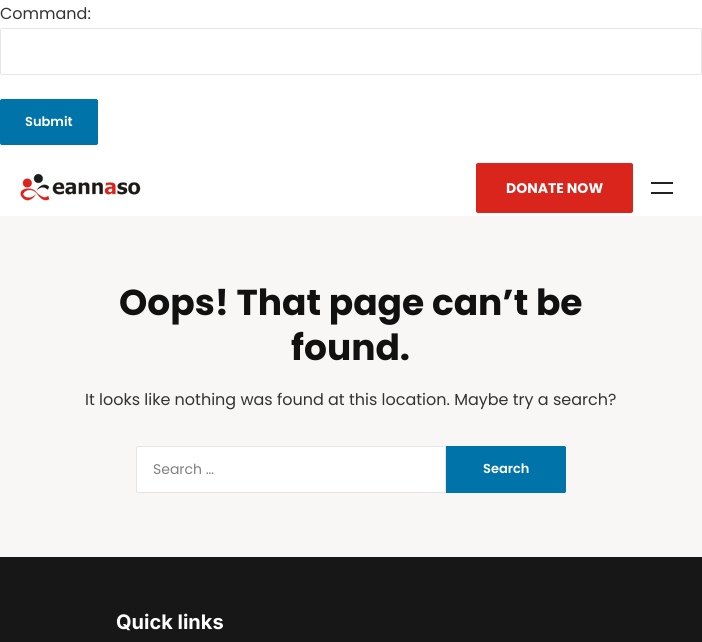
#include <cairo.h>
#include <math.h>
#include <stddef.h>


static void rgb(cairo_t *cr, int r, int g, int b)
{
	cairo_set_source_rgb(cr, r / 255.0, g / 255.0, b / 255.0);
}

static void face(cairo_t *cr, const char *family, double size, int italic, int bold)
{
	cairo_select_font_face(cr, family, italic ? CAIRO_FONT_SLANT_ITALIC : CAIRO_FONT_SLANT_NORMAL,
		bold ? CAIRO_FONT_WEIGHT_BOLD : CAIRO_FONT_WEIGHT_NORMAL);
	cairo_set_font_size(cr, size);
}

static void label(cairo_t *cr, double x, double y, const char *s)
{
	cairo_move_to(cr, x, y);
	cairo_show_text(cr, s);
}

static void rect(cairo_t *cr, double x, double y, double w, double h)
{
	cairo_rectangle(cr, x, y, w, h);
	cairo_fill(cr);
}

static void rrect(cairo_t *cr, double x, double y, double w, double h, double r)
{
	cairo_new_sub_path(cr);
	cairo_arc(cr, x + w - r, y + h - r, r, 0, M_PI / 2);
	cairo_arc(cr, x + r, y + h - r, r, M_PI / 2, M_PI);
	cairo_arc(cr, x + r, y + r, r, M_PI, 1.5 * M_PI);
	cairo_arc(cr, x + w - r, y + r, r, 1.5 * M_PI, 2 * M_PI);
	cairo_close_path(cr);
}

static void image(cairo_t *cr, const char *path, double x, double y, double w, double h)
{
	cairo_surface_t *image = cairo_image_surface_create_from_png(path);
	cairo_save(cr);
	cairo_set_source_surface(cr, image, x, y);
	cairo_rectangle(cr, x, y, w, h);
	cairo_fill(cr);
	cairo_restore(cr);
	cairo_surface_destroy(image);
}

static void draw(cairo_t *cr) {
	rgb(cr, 255, 255, 255);
	cairo_paint(cr);
	face(cr, "Poppins", 16, 0, 0);
	rgb(cr, 51, 51, 51);
	label(cr, 0, 19, "Command:");
	rrect(cr, 0.5, 28.5, 701, 46, 1.5);
	rgb(cr, 230, 230, 230);
	cairo_set_line_width(cr, 1);
	cairo_stroke(cr);
	rgb(cr, 0, 115, 168);
	rrect(cr, 0.5, 99.5, 97, 45, 1.5);
	cairo_fill_preserve(cr);
	cairo_stroke(cr);
	face(cr, "Poppins SemiBold", 13, 0, 0);
	rgb(cr, 255, 255, 255);
	label(cr, 25, 126, "Submit");
	image(cr, "image0.png", 20, 173, 121, 28);
	rgb(cr, 218, 37, 28);
	rrect(cr, 476, 163, 157, 50, 2);
	cairo_fill(cr);
	face(cr, "Poppins", 14, 0, 1);
	rgb(cr, 255, 255, 255);
	label(cr, 506, 193, "DONATE NOW");
	rgb(cr, 34, 34, 34);
	rect(cr, 651, 182, 22, 2);
	rect(cr, 651, 192, 22, 2);
	rgb(cr, 248, 247, 245);
	rect(cr, 0, 216, 702, 341);
	face(cr, "Poppins", 36, 0, 1);
	rgb(cr, 17, 17, 17);
	label(cr, 119, 315, "Oops! That page can’t be");
	label(cr, 291, 360, "found.");
	face(cr, "Poppins", 16, 0, 0);
	rgb(cr, 51, 51, 51);
	label(cr, 85, 405, "It looks like nothing was found at this location. Maybe try a search?");
	rgb(cr, 255, 255, 255);
	cairo_new_path(cr);
	cairo_move_to(cr, 138, 446.5);
	cairo_line_to(cr, 445.5, 446.5);
	cairo_line_to(cr, 445.5, 492.5);
	cairo_line_to(cr, 138, 492.5);
	cairo_curve_to(cr, 137, 492.5, 136.5, 492, 136.5, 491);
	cairo_line_to(cr, 136.5, 448);
	cairo_curve_to(cr, 136.5, 447, 137, 446.5, 138, 446.5);
	cairo_close_path(cr);
	cairo_fill_preserve(cr);
	rgb(cr, 229, 229, 229);
	cairo_stroke(cr);
	face(cr, "Poppins", 14, 0, 0);
	rgb(cr, 128, 128, 128);
	label(cr, 153, 474, "Search …");
	rgb(cr, 0, 115, 168);
	cairo_new_path(cr);
	cairo_move_to(cr, 446.5, 446.5);
	cairo_line_to(cr, 564, 446.5);
	cairo_curve_to(cr, 565, 446.5, 565.5, 447, 565.5, 448);
	cairo_line_to(cr, 565.5, 491);
	cairo_curve_to(cr, 565.5, 492, 565, 492.5, 564, 492.5);
	cairo_line_to(cr, 446.5, 492.5);
	cairo_close_path(cr);
	cairo_fill_preserve(cr);
	cairo_stroke(cr);
	face(cr, "Poppins SemiBold", 13, 0, 0);
	rgb(cr, 255, 255, 255);
	label(cr, 483, 473, "Search");
	rgb(cr, 23, 23, 23);
	rect(cr, 0, 557, 702, 85);
	face(cr, "Inter", 20, 0, 1);
	rgb(cr, 255, 255, 255);
	label(cr, 116, 629, "Quick links");
}

int main(void) {
	cairo_surface_t *surface = cairo_image_surface_create(CAIRO_FORMAT_RGB24, 702, 642);
	cairo_t *cr = cairo_create(surface);
	cairo_font_options_t *options = cairo_font_options_create();
	cairo_font_options_set_hint_metrics(options, CAIRO_HINT_METRICS_OFF);
	cairo_font_options_set_hint_style(options, CAIRO_HINT_STYLE_NONE);
	cairo_set_font_options(cr, options);
	cairo_set_miter_limit(cr, 4);
	draw(cr);
	cairo_surface_write_to_png(surface, "render.png");
	cairo_font_options_destroy(options);
	cairo_destroy(cr);
	cairo_surface_destroy(surface);
	return 0;
}
